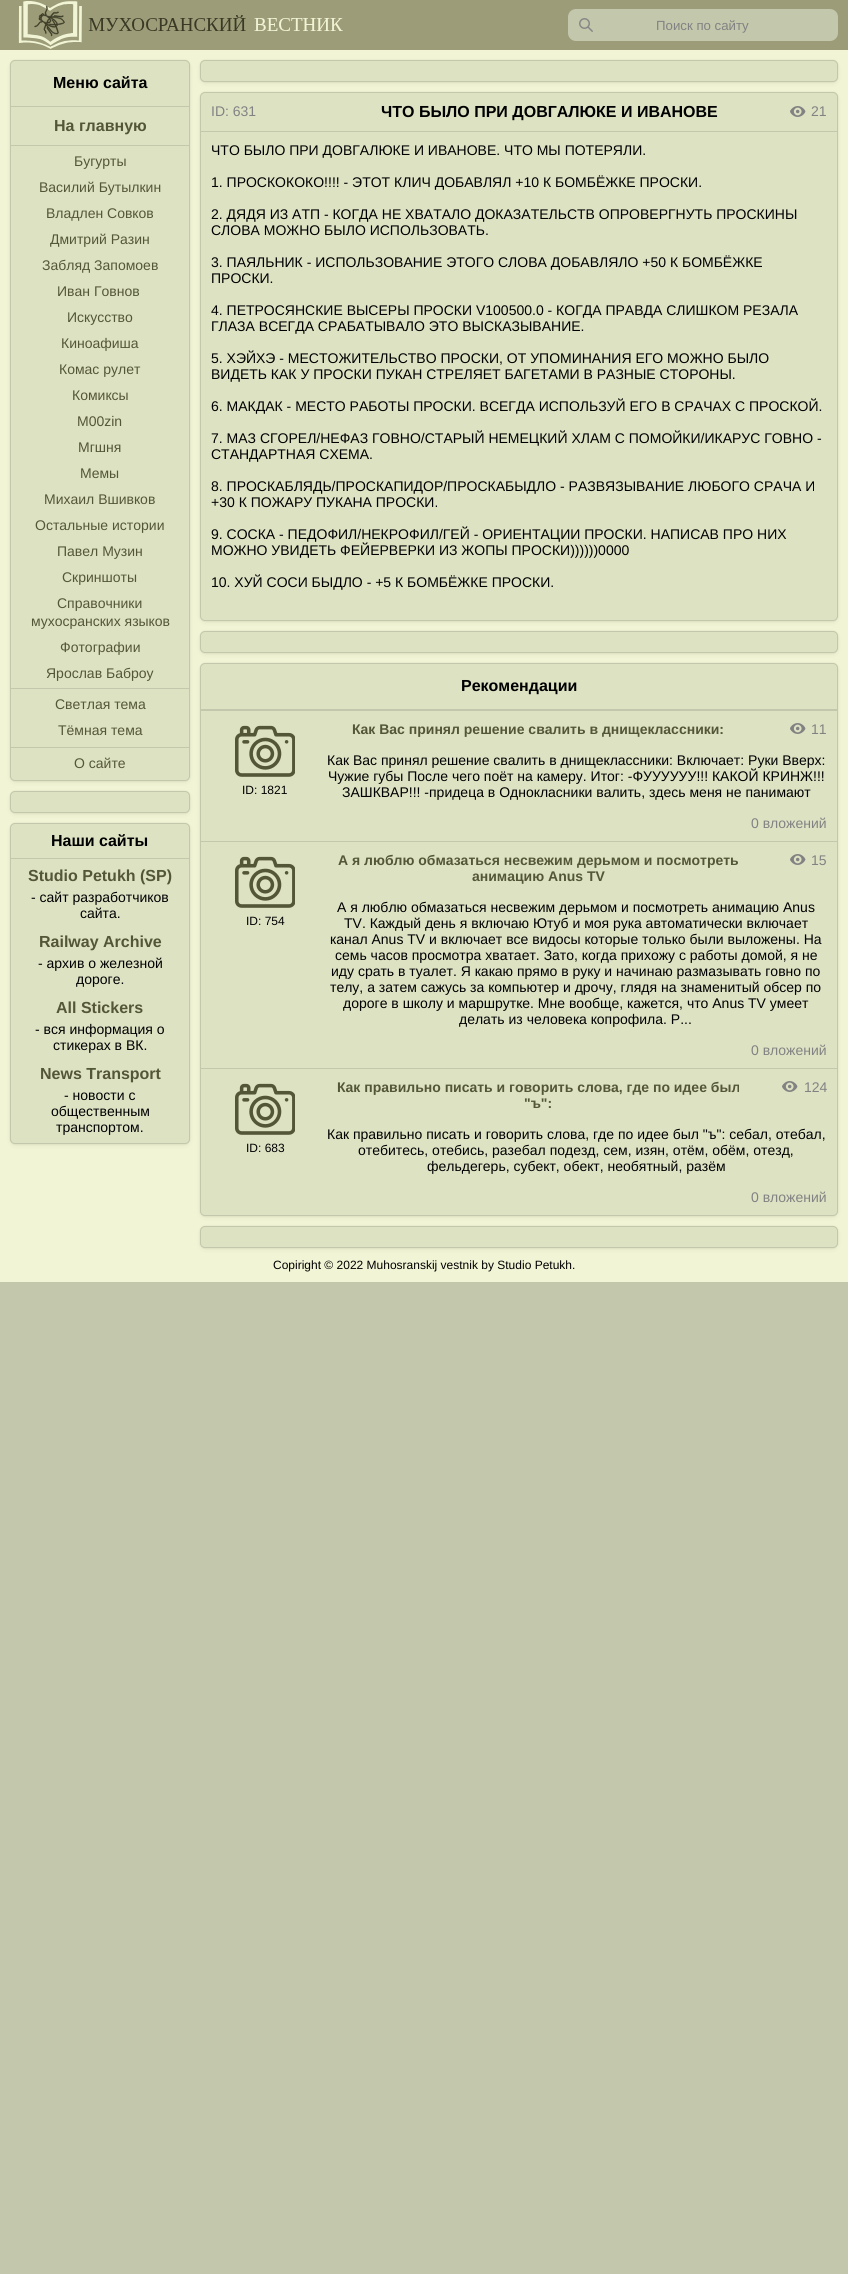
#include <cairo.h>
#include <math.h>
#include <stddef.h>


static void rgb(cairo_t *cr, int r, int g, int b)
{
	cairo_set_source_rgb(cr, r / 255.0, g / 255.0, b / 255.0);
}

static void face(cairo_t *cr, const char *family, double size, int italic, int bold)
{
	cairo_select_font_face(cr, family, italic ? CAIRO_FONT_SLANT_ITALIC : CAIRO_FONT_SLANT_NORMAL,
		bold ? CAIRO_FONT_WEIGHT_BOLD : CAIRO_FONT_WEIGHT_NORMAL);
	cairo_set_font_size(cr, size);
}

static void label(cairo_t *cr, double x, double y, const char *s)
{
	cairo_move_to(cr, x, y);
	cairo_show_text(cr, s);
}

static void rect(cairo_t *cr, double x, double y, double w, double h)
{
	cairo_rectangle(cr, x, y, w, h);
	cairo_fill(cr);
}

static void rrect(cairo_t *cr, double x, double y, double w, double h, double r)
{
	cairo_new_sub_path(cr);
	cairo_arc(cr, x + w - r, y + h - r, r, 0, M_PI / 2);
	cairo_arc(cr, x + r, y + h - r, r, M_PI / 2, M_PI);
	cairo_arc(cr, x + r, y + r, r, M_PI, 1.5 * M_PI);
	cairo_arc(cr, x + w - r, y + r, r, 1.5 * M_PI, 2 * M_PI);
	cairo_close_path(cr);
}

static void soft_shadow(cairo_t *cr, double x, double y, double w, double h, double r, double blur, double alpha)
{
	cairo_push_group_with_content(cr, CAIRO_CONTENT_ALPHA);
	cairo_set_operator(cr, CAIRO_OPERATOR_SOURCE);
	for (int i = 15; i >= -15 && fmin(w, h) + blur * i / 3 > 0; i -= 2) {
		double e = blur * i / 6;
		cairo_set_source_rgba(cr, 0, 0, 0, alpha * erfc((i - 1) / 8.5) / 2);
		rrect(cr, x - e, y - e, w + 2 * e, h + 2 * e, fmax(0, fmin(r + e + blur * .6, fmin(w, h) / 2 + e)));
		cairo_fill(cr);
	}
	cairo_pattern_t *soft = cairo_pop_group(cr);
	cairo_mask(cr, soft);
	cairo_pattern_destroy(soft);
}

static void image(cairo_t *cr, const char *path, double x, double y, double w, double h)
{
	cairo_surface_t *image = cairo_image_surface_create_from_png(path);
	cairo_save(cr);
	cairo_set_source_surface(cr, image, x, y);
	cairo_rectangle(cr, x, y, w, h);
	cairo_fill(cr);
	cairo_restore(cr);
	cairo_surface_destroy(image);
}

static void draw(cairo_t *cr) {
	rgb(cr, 195, 199, 172);
	cairo_paint(cr);
	rgb(cr, 156, 156, 121);
	rect(cr, 0, 0, 848, 50);
	image(cr, "image0.png", 18, 1, 325, 48);
	rgb(cr, 195, 199, 172);
	rrect(cr, 568, 9, 270, 32, 8);
	cairo_fill(cr);
	image(cr, "image1.png", 579, 18, 14, 14);
	face(cr, "Liberation Sans", 13.25, 0, 0);
	rgb(cr, 130, 130, 130);
	label(cr, 656, 30, "Поиск по сайту");
	rgb(cr, 242, 245, 213);
	rect(cr, 0, 50, 848, 1232);
	rgb(cr, 0, 0, 0);
	soft_shadow(cr, 10, 62, 180, 721, 5, 2, 0.06);
	soft_shadow(cr, 10, 60, 180, 721, 5, 1, 0.08);
	rgb(cr, 221, 226, 195);
	rrect(cr, 10.5, 60.5, 179, 720, 4.5);
	cairo_fill_preserve(cr);
	rgb(cr, 195, 199, 172);
	cairo_set_line_width(cr, 1);
	cairo_stroke(cr);
	rect(cr, 11, 106, 178, 1);
	face(cr, "Liberation Sans", 16, 0, 1);
	rgb(cr, 0, 0, 0);
	label(cr, 53, 88, "Меню сайта");
	rgb(cr, 195, 199, 172);
	rect(cr, 11, 145, 178, 1);
	rgb(cr, 84, 87, 55);
	label(cr, 54, 131, "На главную");
	face(cr, "Liberation Sans", 14, 0, 0);
	label(cr, 74, 166, "Бугурты");
	label(cr, 39, 192, "Василий Бутылкин");
	label(cr, 46, 218, "Владлен Совков");
	label(cr, 50, 244, "Дмитрий Разин");
	label(cr, 42, 270, "Забляд Запомоев");
	label(cr, 57, 296, "Иван Говнов");
	label(cr, 67, 322, "Искусство");
	label(cr, 61, 348, "Киноафиша");
	label(cr, 59, 374, "Комас рулет");
	label(cr, 72, 400, "Комиксы");
	label(cr, 77, 426, "M00zin");
	label(cr, 78, 452, "Мгшня");
	label(cr, 80, 478, "Мемы");
	label(cr, 44, 504, "Михаил Вшивков");
	label(cr, 35, 530, "Остальные истории");
	label(cr, 57, 556, "Павел Музин");
	label(cr, 62, 582, "Скриншоты");
	label(cr, 57, 608, "Справочники");
	label(cr, 31, 626, "мухосранских языков");
	label(cr, 60, 652, "Фотографии");
	label(cr, 46, 678, "Ярослав Баброу");
	rgb(cr, 195, 199, 172);
	rect(cr, 11, 688, 178, 1);
	rgb(cr, 84, 87, 55);
	label(cr, 55, 709, "Светлая тема");
	label(cr, 58, 735, "Тёмная тема");
	rgb(cr, 195, 199, 172);
	rect(cr, 11, 747, 178, 1);
	rgb(cr, 84, 87, 55);
	label(cr, 74, 768, "О сайте");
	rgb(cr, 0, 0, 0);
	soft_shadow(cr, 10, 793, 180, 22, 5, 2, 0.06);
	soft_shadow(cr, 10, 791, 180, 22, 5, 1, 0.08);
	rgb(cr, 221, 226, 195);
	rrect(cr, 10.5, 791.5, 179, 21, 4.5);
	cairo_fill_preserve(cr);
	rgb(cr, 195, 199, 172);
	cairo_stroke(cr);
	rgb(cr, 0, 0, 0);
	soft_shadow(cr, 10, 825, 180, 321, 5, 2, 0.06);
	soft_shadow(cr, 10, 823, 180, 321, 5, 1, 0.08);
	rgb(cr, 221, 226, 195);
	rrect(cr, 10.5, 823.5, 179, 320, 4.5);
	cairo_fill_preserve(cr);
	rgb(cr, 195, 199, 172);
	cairo_stroke(cr);
	rect(cr, 11, 858, 178, 1);
	face(cr, "Liberation Sans", 16, 0, 1);
	rgb(cr, 0, 0, 0);
	label(cr, 51, 846, "Наши сайты");
	rgb(cr, 84, 87, 55);
	label(cr, 28, 881, "Studio Petukh (SP)");
	face(cr, "Liberation Sans", 14, 0, 0);
	rgb(cr, 0, 0, 0);
	label(cr, 31, 902, "- сайт разработчиков");
	label(cr, 80, 918, "сайта.");
	face(cr, "Liberation Sans", 16, 0, 1);
	rgb(cr, 84, 87, 55);
	label(cr, 39, 947, "Railway Archive");
	face(cr, "Liberation Sans", 14, 0, 0);
	rgb(cr, 0, 0, 0);
	label(cr, 38, 968, "- архив о железной");
	label(cr, 76, 984, "дороге.");
	face(cr, "Liberation Sans", 16, 0, 1);
	rgb(cr, 84, 87, 55);
	label(cr, 56, 1013, "All Stickers");
	face(cr, "Liberation Sans", 14, 0, 0);
	rgb(cr, 0, 0, 0);
	label(cr, 35, 1034, "- вся информация о");
	label(cr, 53, 1050, "стикерах в ВК.");
	face(cr, "Liberation Sans", 16, 0, 1);
	rgb(cr, 84, 87, 55);
	label(cr, 40, 1079, "News Transport");
	face(cr, "Liberation Sans", 14, 0, 0);
	rgb(cr, 0, 0, 0);
	label(cr, 64, 1100, "- новости с");
	label(cr, 51, 1116, "общественным");
	label(cr, 56, 1132, "транспортом.");
	rgb(cr, 0, 0, 0);
	soft_shadow(cr, 200, 62, 638, 22, 5, 2, 0.06);
	soft_shadow(cr, 200, 60, 638, 22, 5, 1, 0.08);
	rgb(cr, 221, 226, 195);
	rrect(cr, 200.5, 60.5, 637, 21, 4.5);
	cairo_fill_preserve(cr);
	rgb(cr, 195, 199, 172);
	cairo_stroke(cr);
	rgb(cr, 0, 0, 0);
	soft_shadow(cr, 200, 94, 638, 529, 5, 2, 0.06);
	soft_shadow(cr, 200, 92, 638, 529, 5, 1, 0.08);
	rgb(cr, 221, 226, 195);
	rrect(cr, 200.5, 92.5, 637, 528, 4.5);
	cairo_fill_preserve(cr);
	rgb(cr, 195, 199, 172);
	cairo_stroke(cr);
	rect(cr, 201, 131, 636, 1);
	rgb(cr, 130, 130, 130);
	label(cr, 211, 116, "ID: 631");
	face(cr, "Liberation Sans", 16, 0, 1);
	rgb(cr, 0, 0, 0);
	label(cr, 381, 117, "ЧТО БЫЛО ПРИ ДОВГАЛЮКЕ И ИВАНОВЕ");
	image(cr, "image2.png", 790, 106, 16, 11);
	face(cr, "Liberation Sans", 14, 0, 0);
	rgb(cr, 130, 130, 130);
	label(cr, 811, 116, "21");
	rgb(cr, 0, 0, 0);
	label(cr, 211, 155, "ЧТО БЫЛО ПРИ ДОВГАЛЮКЕ И ИВАНОВЕ. ЧТО МЫ ПОТЕРЯЛИ.");
	label(cr, 211, 187, "1. ПРОСКОКОКО!!!! - ЭТОТ КЛИЧ ДОБАВЛЯЛ +10 К БОМБЁЖКЕ ПРОСКИ.");
	label(cr, 211, 219, "2. ДЯДЯ ИЗ АТП - КОГДА НЕ ХВАТАЛО ДОКАЗАТЕЛЬСТВ ОПРОВЕРГНУТЬ ПРОСКИНЫ");
	label(cr, 211, 235, "СЛОВА МОЖНО БЫЛО ИСПОЛЬЗОВАТЬ.");
	label(cr, 211, 267, "3. ПАЯЛЬНИК - ИСПОЛЬЗОВАНИЕ ЭТОГО СЛОВА ДОБАВЛЯЛО +50 К БОМБЁЖКЕ");
	label(cr, 211, 283, "ПРОСКИ.");
	label(cr, 211, 315, "4. ПЕТРОСЯНСКИЕ ВЫСЕРЫ ПРОСКИ V100500.0 - КОГДА ПРАВДА СЛИШКОМ РЕЗАЛА");
	label(cr, 211, 331, "ГЛАЗА ВСЕГДА СРАБАТЫВАЛО ЭТО ВЫСКАЗЫВАНИЕ.");
	label(cr, 211, 363, "5. ХЭЙХЭ - МЕСТОЖИТЕЛЬСТВО ПРОСКИ, ОТ УПОМИНАНИЯ ЕГО МОЖНО БЫЛО");
	label(cr, 211, 379, "ВИДЕТЬ КАК У ПРОСКИ ПУКАН СТРЕЛЯЕТ БАГЕТАМИ В РАЗНЫЕ СТОРОНЫ.");
	label(cr, 211, 411, "6. МАКДАК - МЕСТО РАБОТЫ ПРОСКИ. ВСЕГДА ИСПОЛЬЗУЙ ЕГО В СРАЧАХ С ПРОСКОЙ.");
	label(cr, 211, 443, "7. МАЗ СГОРЕЛ/НЕФАЗ ГОВНО/СТАРЫЙ НЕМЕЦКИЙ ХЛАМ С ПОМОЙКИ/ИКАРУС ГОВНО -");
	label(cr, 211, 459, "СТАНДАРТНАЯ СХЕМА.");
	label(cr, 211, 491, "8. ПРОСКАБЛЯДЬ/ПРОСКАПИДОР/ПРОСКАБЫДЛО - РАЗВЯЗЫВАНИЕ ЛЮБОГО СРАЧА И");
	label(cr, 211, 507, "+30 К ПОЖАРУ ПУКАНА ПРОСКИ.");
	label(cr, 211, 539, "9. СОСКА - ПЕДОФИЛ/НЕКРОФИЛ/ГЕЙ - ОРИЕНТАЦИИ ПРОСКИ. НАПИСАВ ПРО НИХ");
	label(cr, 211, 555, "МОЖНО УВИДЕТЬ ФЕЙЕРВЕРКИ ИЗ ЖОПЫ ПРОСКИ))))))0000");
	label(cr, 211, 587, "10. ХУЙ СОСИ БЫДЛО - +5 К БОМБЁЖКЕ ПРОСКИ.");
	rgb(cr, 0, 0, 0);
	soft_shadow(cr, 200, 633, 638, 22, 5, 2, 0.06);
	soft_shadow(cr, 200, 631, 638, 22, 5, 1, 0.08);
	rgb(cr, 221, 226, 195);
	rrect(cr, 200.5, 631.5, 637, 21, 4.5);
	cairo_fill_preserve(cr);
	rgb(cr, 195, 199, 172);
	cairo_stroke(cr);
	rgb(cr, 0, 0, 0);
	soft_shadow(cr, 200, 665, 638, 553, 5, 2, 0.06);
	soft_shadow(cr, 200, 663, 638, 553, 5, 1, 0.08);
	rgb(cr, 221, 226, 195);
	rrect(cr, 200.5, 663.5, 637, 552, 4.5);
	cairo_fill_preserve(cr);
	rgb(cr, 195, 199, 172);
	cairo_stroke(cr);
	rect(cr, 201, 709, 636, 2);
	face(cr, "Liberation Sans", 16, 0, 1);
	rgb(cr, 0, 0, 0);
	label(cr, 461, 691, "Рекомендации");
	image(cr, "image3.png", 235, 725, 60, 52);
	face(cr, "Liberation Sans", 12, 0, 0);
	label(cr, 242, 794, "ID: 1821");
	face(cr, "Liberation Sans", 14, 0, 1);
	rgb(cr, 84, 87, 55);
	label(cr, 352, 734, "Как Вас принял решение свалить в днищеклассники:");
	image(cr, "image2.png", 790, 723, 16, 11);
	face(cr, "Liberation Sans", 14, 0, 0);
	rgb(cr, 130, 130, 130);
	label(cr, 811, 734, "11");
	rgb(cr, 0, 0, 0);
	label(cr, 327, 765, "Как Вас принял решение свалить в днищеклассники: Включает: Руки Вверх:");
	label(cr, 328, 781, "Чужие губы После чего поёт на камеру. Итог: -ФУУУУУУ!!! КАКОЙ КРИНЖ!!!");
	label(cr, 342, 797, "ЗАШКВАР!!! -придеца в Однокласники валить, здесь меня не панимают");
	rgb(cr, 130, 130, 130);
	label(cr, 751, 828, "0 вложений");
	rgb(cr, 195, 199, 172);
	rect(cr, 201, 841, 636, 1);
	image(cr, "image3.png", 235, 856, 60, 52);
	face(cr, "Liberation Sans", 12, 0, 0);
	rgb(cr, 0, 0, 0);
	label(cr, 246, 925, "ID: 754");
	face(cr, "Liberation Sans", 14, 0, 1);
	rgb(cr, 84, 87, 55);
	label(cr, 338, 865, "А я люблю обмазаться несвежим дерьмом и посмотреть");
	label(cr, 472, 881, "анимацию Anus TV");
	image(cr, "image2.png", 790, 854, 16, 11);
	face(cr, "Liberation Sans", 14, 0, 0);
	rgb(cr, 130, 130, 130);
	label(cr, 811, 865, "15");
	rgb(cr, 0, 0, 0);
	label(cr, 337, 912, "А я люблю обмазаться несвежим дерьмом и посмотреть анимацию Anus");
	label(cr, 344, 928, "TV. Каждый день я включаю Ютуб и моя рука автоматически включает");
	label(cr, 330, 944, "канал Anus TV и включает все видосы которые только были выложены. На");
	label(cr, 335, 960, "семь часов просмотра хватает. Зато, когда прихожу с работы домой, я не");
	label(cr, 331, 976, "иду срать в туалет. Я какаю прямо в руку и начинаю размазывать говно по");
	label(cr, 330, 992, "телу, а затем сажусь за компьютер и дрочу, глядя на знаменитый обсер по");
	label(cr, 343, 1008, "дороге в школу и маршрутке. Мне вообще, кажется, что Anus TV умеет");
	label(cr, 459, 1024, "делать из человека копрофила. Р...");
	rgb(cr, 130, 130, 130);
	label(cr, 751, 1055, "0 вложений");
	rgb(cr, 195, 199, 172);
	rect(cr, 201, 1068, 636, 1);
	image(cr, "image3.png", 235, 1083, 60, 52);
	face(cr, "Liberation Sans", 12, 0, 0);
	rgb(cr, 0, 0, 0);
	label(cr, 246, 1152, "ID: 683");
	face(cr, "Liberation Sans", 14, 0, 1);
	rgb(cr, 84, 87, 55);
	label(cr, 337, 1092, "Как правильно писать и говорить слова, где по идее был");
	label(cr, 524, 1108, "\"ъ\":");
	image(cr, "image2.png", 782, 1081, 16, 11);
	face(cr, "Liberation Sans", 14, 0, 0);
	rgb(cr, 130, 130, 130);
	label(cr, 804, 1092, "124");
	rgb(cr, 0, 0, 0);
	label(cr, 327, 1139, "Как правильно писать и говорить слова, где по идее был \"ъ\": себал, отебал,");
	label(cr, 358, 1155, "отебитесь, отебись, разебал подезд, сем, изян, отём, обём, отезд,");
	label(cr, 427, 1171, "фельдегерь, субект, обект, необятный, разём");
	rgb(cr, 130, 130, 130);
	label(cr, 751, 1202, "0 вложений");
	rgb(cr, 0, 0, 0);
	soft_shadow(cr, 200, 1228, 638, 22, 5, 2, 0.06);
	soft_shadow(cr, 200, 1226, 638, 22, 5, 1, 0.08);
	rgb(cr, 221, 226, 195);
	rrect(cr, 200.5, 1226.5, 637, 21, 4.5);
	cairo_fill_preserve(cr);
	rgb(cr, 195, 199, 172);
	cairo_stroke(cr);
	face(cr, "Liberation Sans", 12, 0, 0);
	rgb(cr, 0, 0, 0);
	label(cr, 273, 1269, "Copiright © 2022 Muhosranskij vestnik by Studio Petukh.");
}

int main(void) {
	cairo_surface_t *surface = cairo_image_surface_create(CAIRO_FORMAT_RGB24, 848, 2274);
	cairo_t *cr = cairo_create(surface);
	cairo_font_options_t *options = cairo_font_options_create();
	cairo_font_options_set_hint_metrics(options, CAIRO_HINT_METRICS_OFF);
	cairo_font_options_set_hint_style(options, CAIRO_HINT_STYLE_NONE);
	cairo_set_font_options(cr, options);
	cairo_set_miter_limit(cr, 4);
	draw(cr);
	cairo_surface_write_to_png(surface, "render.png");
	cairo_font_options_destroy(options);
	cairo_destroy(cr);
	cairo_surface_destroy(surface);
	return 0;
}
